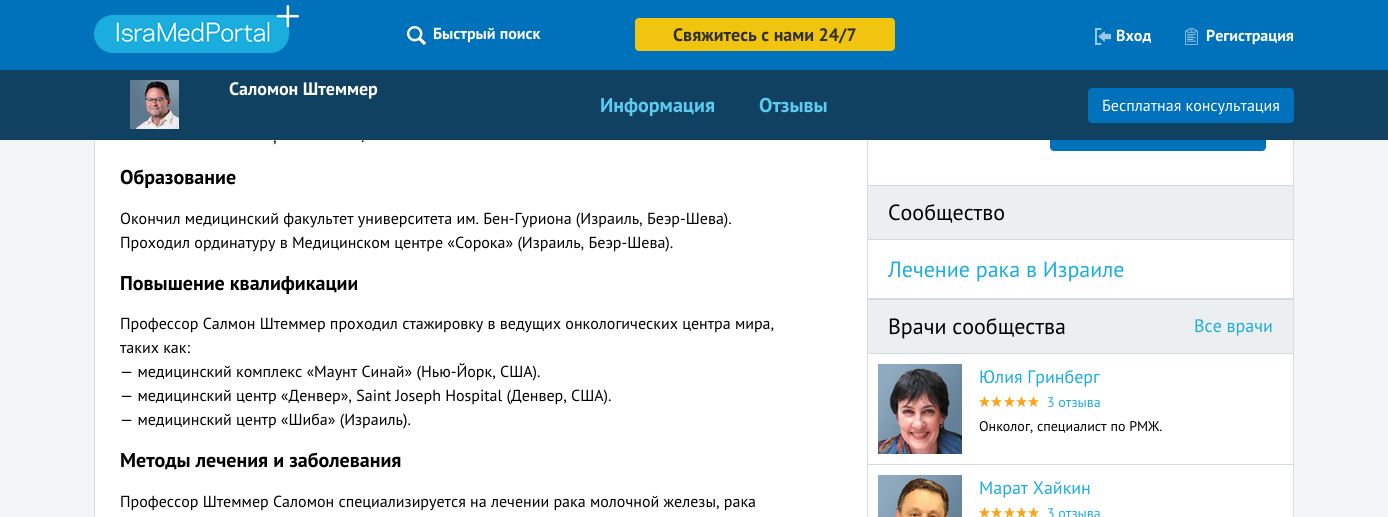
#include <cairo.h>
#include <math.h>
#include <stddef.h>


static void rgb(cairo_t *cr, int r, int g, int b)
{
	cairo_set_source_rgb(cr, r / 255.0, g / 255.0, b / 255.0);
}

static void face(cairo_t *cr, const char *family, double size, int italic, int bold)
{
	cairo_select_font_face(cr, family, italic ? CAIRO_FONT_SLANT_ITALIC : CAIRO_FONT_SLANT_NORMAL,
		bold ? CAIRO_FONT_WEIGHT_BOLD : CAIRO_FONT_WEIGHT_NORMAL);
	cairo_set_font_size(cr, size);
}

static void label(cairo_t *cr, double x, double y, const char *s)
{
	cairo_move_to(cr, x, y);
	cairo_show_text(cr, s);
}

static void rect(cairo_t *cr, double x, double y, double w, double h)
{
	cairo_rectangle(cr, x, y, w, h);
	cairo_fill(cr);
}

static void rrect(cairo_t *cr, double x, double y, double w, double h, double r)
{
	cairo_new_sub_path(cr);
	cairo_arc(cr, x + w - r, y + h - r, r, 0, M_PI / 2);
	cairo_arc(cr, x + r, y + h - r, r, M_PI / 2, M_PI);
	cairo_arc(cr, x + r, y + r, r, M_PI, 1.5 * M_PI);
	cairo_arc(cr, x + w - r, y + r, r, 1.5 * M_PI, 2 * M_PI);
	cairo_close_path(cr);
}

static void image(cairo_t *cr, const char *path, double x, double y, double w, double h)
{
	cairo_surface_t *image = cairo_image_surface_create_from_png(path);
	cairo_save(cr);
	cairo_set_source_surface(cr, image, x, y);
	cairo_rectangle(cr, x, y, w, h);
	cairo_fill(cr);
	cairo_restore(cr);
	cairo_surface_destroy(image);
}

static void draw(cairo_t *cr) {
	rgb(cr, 243, 245, 246);
	cairo_paint(cr);
	rgb(cr, 255, 255, 255);
	rect(cr, 95, 140, 1198, 377);
	rgb(cr, 212, 219, 221);
	cairo_set_fill_rule(cr, CAIRO_FILL_RULE_EVEN_ODD);
	cairo_new_path(cr);
	cairo_move_to(cr, 94, 62);
	cairo_line_to(cr, 1294, 62);
	cairo_line_to(cr, 1294, 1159);
	cairo_curve_to(cr, 1294, 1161, 1292, 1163, 1290, 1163);
	cairo_line_to(cr, 98, 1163);
	cairo_curve_to(cr, 96, 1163, 94, 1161, 94, 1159);
	cairo_close_path(cr);
	cairo_move_to(cr, 95, 62);
	cairo_line_to(cr, 1293, 62);
	cairo_line_to(cr, 1293, 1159);
	cairo_curve_to(cr, 1293, 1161, 1292, 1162, 1290, 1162);
	cairo_line_to(cr, 98, 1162);
	cairo_curve_to(cr, 96, 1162, 95, 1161, 95, 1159);
	cairo_close_path(cr);
	cairo_fill(cr);
	rgb(cr, 0, 114, 187);
	rect(cr, 0, 0, 1388, 70);
	image(cr, "image0.png", 94, 5, 205, 48);
	image(cr, "image1.png", 407, 26, 19, 19);
	face(cr, "PT Sans", 16, 0, 1);
	rgb(cr, 255, 255, 255);
	label(cr, 433, 39, "Быстрый поиск");
	rgb(cr, 241, 196, 15);
	rrect(cr, 635, 18, 260, 33, 4);
	cairo_fill(cr);
	face(cr, "PT Sans", 18, 0, 1);
	rgb(cr, 48, 48, 48);
	label(cr, 673, 41, "Свяжитесь с нами 24/7");
	image(cr, "image2.png", 1095, 28, 16, 17);
	face(cr, "PT Sans", 16, 0, 1);
	rgb(cr, 255, 255, 255);
	label(cr, 1116, 41, "Вход");
	image(cr, "image3.png", 1185, 28, 13, 17);
	label(cr, 1206, 41, "Регистрация");
	rgb(cr, 0, 114, 187);
	rrect(cr, 1050, 113, 216, 38, 4);
	cairo_fill(cr);
	rgb(cr, 16, 65, 97);
	rect(cr, 0, 70, 1388, 70);
	image(cr, "image4.png", 130, 80, 49, 49);
	face(cr, "PT Sans", 18, 0, 1);
	rgb(cr, 255, 255, 255);
	label(cr, 229, 95, "Саломон Штеммер");
	face(cr, "PT Sans", 20, 0, 1);
	rgb(cr, 92, 203, 240);
	label(cr, 600, 112, "Информация");
	label(cr, 759, 112, "Отзывы");
	rgb(cr, 0, 114, 187);
	rrect(cr, 1088, 88, 206, 35, 4);
	cairo_fill(cr);
	face(cr, "PT Sans", 16, 0, 0);
	rgb(cr, 255, 255, 255);
	label(cr, 1102, 111, "Бесплатная консультация");
	rgb(cr, 0, 0, 0);
	label(cr, 273, 142, ",");
	label(cr, 361, 142, ".");
	face(cr, "PT Sans", 20, 0, 1);
	label(cr, 120, 184, "Образование");
	face(cr, "PT Sans", 16, 0, 0);
	label(cr, 120, 224, "Окончил медицинский факультет университета им. Бен-Гуриона (Израиль, Беэр-Шева).");
	label(cr, 120, 248, "Проходил ординатуру в Медицинском центре «Сорока» (Израиль, Беэр-Шева).");
	face(cr, "PT Sans", 20, 0, 1);
	label(cr, 120, 290, "Повышение квалификации");
	face(cr, "PT Sans", 16, 0, 0);
	label(cr, 120, 329, "Профессор Салмон Штеммер проходил стажировку в ведущих онкологических центра мира,");
	label(cr, 120, 353, "таких как:");
	label(cr, 120, 377, "— медицинский комплекс «Маунт Синай» (Нью-Йорк, США).");
	label(cr, 120, 401, "— медицинский центр «Денвер», Saint Joseph Hospital (Денвер, США).");
	label(cr, 120, 425, "— медицинский центр «Шиба» (Израиль).");
	face(cr, "PT Sans", 20, 0, 1);
	label(cr, 120, 467, "Методы лечения и заболевания");
	face(cr, "PT Sans", 16, 0, 0);
	label(cr, 120, 507, "Профессор Штеммер Саломон специализируется на лечении рака молочной железы, рака");
	rgb(cr, 212, 219, 221);
	rect(cr, 867, 140, 1, 377);
	rect(cr, 868, 185, 425, 1);
	rgb(cr, 236, 239, 240);
	rect(cr, 868, 186, 425, 53);
	rgb(cr, 212, 219, 221);
	rect(cr, 868, 239, 425, 1);
	face(cr, "PT Sans", 22, 0, 0);
	rgb(cr, 0, 0, 0);
	label(cr, 888, 220, "Сообщество");
	rgb(cr, 27, 173, 222);
	label(cr, 888, 277, "Лечение рака в Израиле");
	rgb(cr, 212, 219, 221);
	rect(cr, 868, 298, 425, 2);
	rgb(cr, 236, 239, 240);
	rect(cr, 868, 300, 425, 53);
	rgb(cr, 212, 219, 221);
	rect(cr, 868, 353, 425, 1);
	rgb(cr, 0, 0, 0);
	label(cr, 888, 334, "Врачи сообщества");
	face(cr, "PT Sans", 18, 0, 0);
	rgb(cr, 27, 173, 222);
	label(cr, 1194, 332, "Все врачи");
	rgb(cr, 212, 219, 221);
	rect(cr, 868, 464, 425, 1);
	image(cr, "image5.png", 878, 364, 84, 90);
	rgb(cr, 27, 173, 222);
	label(cr, 979, 383, "Юлия Гринберг");
	image(cr, "image6.png", 979, 396, 11, 11);
	image(cr, "image6.png", 991, 396, 11, 11);
	image(cr, "image6.png", 1004, 396, 11, 11);
	image(cr, "image6.png", 1016, 396, 11, 11);
	image(cr, "image6.png", 1028, 396, 11, 11);
	face(cr, "PT Sans", 14, 0, 0);
	label(cr, 1047, 407, "3 отзыва");
	rgb(cr, 0, 0, 0);
	label(cr, 979, 431, "Онколог, специалист по РМЖ.");
	image(cr, "image7.png", 878, 475, 84, 42);
	face(cr, "PT Sans", 18, 0, 0);
	rgb(cr, 27, 173, 222);
	label(cr, 979, 494, "Марат Хайкин");
	image(cr, "image8.png", 979, 507, 11, 10);
	image(cr, "image8.png", 991, 507, 11, 10);
	image(cr, "image8.png", 1004, 507, 11, 10);
	image(cr, "image8.png", 1016, 507, 11, 10);
	image(cr, "image8.png", 1028, 507, 11, 10);
	face(cr, "PT Sans", 14, 0, 0);
	label(cr, 1047, 518, "3 отзыва");
}

int main(void) {
	cairo_surface_t *surface = cairo_image_surface_create(CAIRO_FORMAT_RGB24, 1388, 517);
	cairo_t *cr = cairo_create(surface);
	cairo_font_options_t *options = cairo_font_options_create();
	cairo_font_options_set_hint_metrics(options, CAIRO_HINT_METRICS_OFF);
	cairo_font_options_set_hint_style(options, CAIRO_HINT_STYLE_NONE);
	cairo_set_font_options(cr, options);
	cairo_set_miter_limit(cr, 4);
	draw(cr);
	cairo_surface_write_to_png(surface, "render.png");
	cairo_font_options_destroy(options);
	cairo_destroy(cr);
	cairo_surface_destroy(surface);
	return 0;
}
